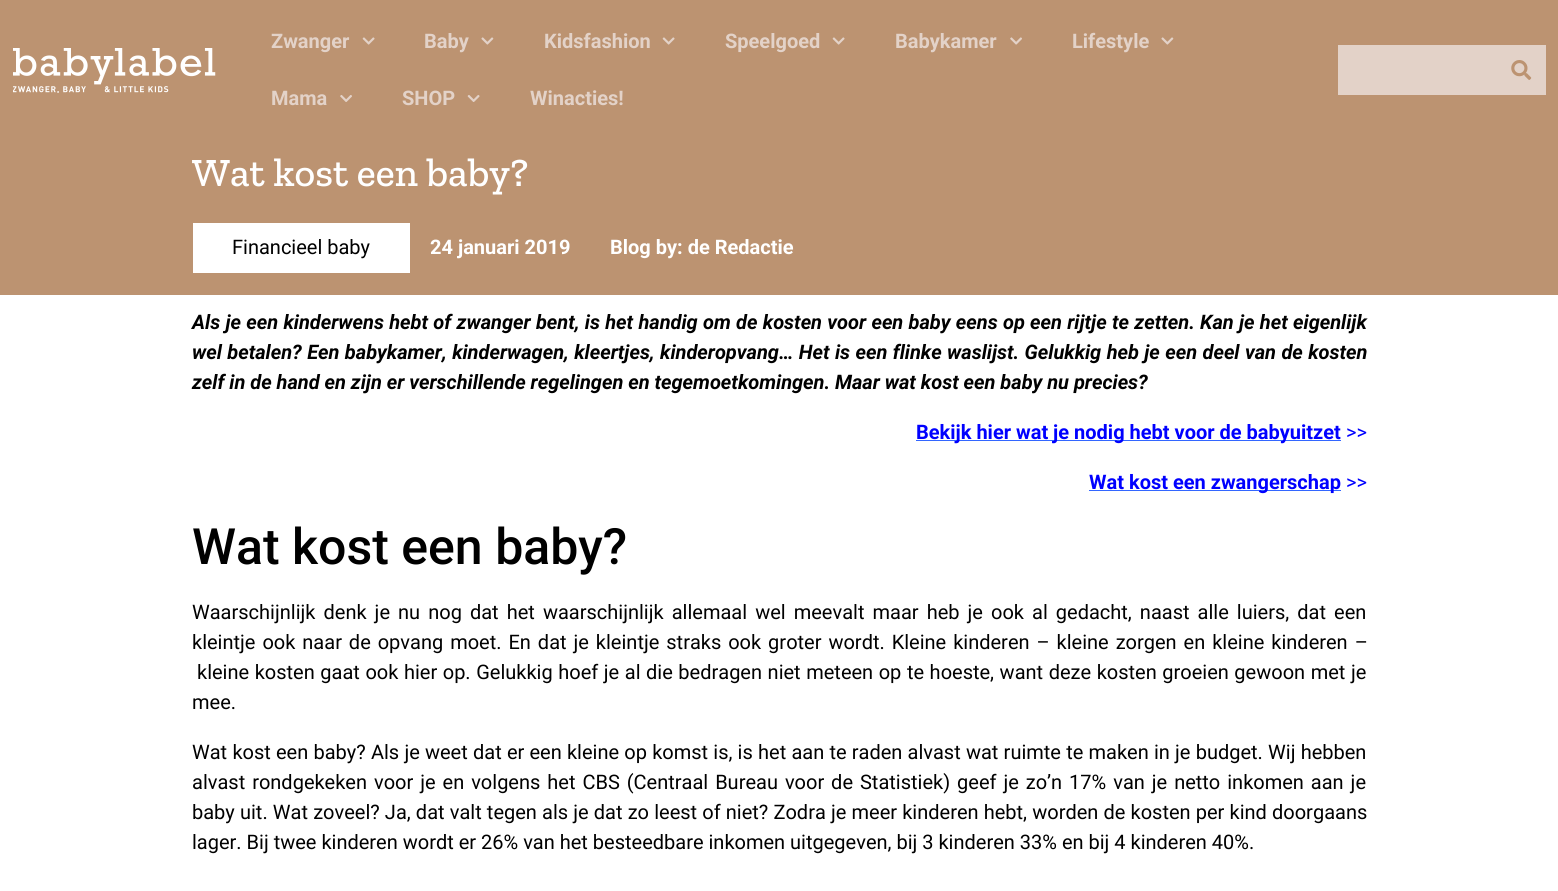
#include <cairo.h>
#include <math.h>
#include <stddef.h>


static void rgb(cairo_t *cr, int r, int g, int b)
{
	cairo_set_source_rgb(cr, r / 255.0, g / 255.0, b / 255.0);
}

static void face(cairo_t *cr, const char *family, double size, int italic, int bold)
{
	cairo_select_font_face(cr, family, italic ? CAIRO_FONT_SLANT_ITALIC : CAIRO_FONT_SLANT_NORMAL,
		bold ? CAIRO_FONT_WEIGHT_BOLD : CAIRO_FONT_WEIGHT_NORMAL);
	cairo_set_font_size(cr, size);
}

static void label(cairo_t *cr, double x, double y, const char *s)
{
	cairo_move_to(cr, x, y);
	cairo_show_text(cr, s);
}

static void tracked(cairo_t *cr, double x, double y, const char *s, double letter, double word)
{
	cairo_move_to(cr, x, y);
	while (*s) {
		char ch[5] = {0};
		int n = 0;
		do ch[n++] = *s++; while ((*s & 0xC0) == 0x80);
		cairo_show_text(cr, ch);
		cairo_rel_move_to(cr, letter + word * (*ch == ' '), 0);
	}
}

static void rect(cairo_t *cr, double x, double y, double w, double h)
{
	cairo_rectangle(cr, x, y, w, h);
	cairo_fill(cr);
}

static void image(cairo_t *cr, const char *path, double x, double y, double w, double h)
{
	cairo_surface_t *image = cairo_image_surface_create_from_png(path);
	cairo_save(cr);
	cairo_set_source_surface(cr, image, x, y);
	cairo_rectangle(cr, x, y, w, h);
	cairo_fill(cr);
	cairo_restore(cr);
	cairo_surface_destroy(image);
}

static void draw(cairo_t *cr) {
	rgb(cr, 255, 255, 255);
	cairo_paint(cr);
	rgb(cr, 188, 147, 113);
	rect(cr, 0, 0, 1558, 295);
	image(cr, "image0.png", 13, 48, 203, 45);
	face(cr, "Roboto", 20, 0, 1);
	rgb(cr, 227, 210, 200);
	label(cr, 271, 48, "Zwanger");
	image(cr, "image1.png", 362, 37, 13, 8);
	label(cr, 424, 48, "Baby");
	image(cr, "image2.png", 481, 37, 13, 8);
	label(cr, 544, 48, "Kidsfashion");
	image(cr, "image1.png", 662, 37, 13, 8);
	label(cr, 725, 48, "Speelgoed");
	image(cr, "image1.png", 832, 37, 13, 8);
	label(cr, 895, 48, "Babykamer");
	image(cr, "image3.png", 1010, 37, 12, 8);
	label(cr, 1072, 48, "Lifestyle");
	image(cr, "image2.png", 1161, 37, 13, 8);
	label(cr, 271, 105, "Mama");
	image(cr, "image4.png", 340, 95, 12, 7);
	label(cr, 402, 105, "SHOP");
	image(cr, "image5.png", 467, 95, 13, 7);
	label(cr, 530, 105, "Winacties!");
	rect(cr, 1338, 45, 208, 50);
	image(cr, "image6.png", 1511, 60, 21, 20);
	face(cr, "Zilla Slab Medium", 40, 0, 0);
	rgb(cr, 255, 255, 255);
	label(cr, 192, 186, "Wat kost een baby?");
	rect(cr, 193, 223, 217, 50);
	face(cr, "Roboto", 20, 0, 0);
	rgb(cr, 0, 0, 0);
	label(cr, 232, 254, "Financieel baby");
	face(cr, "Roboto", 20, 0, 1);
	rgb(cr, 255, 255, 255);
	label(cr, 430, 254, "24 januari 2019");
	label(cr, 610, 254, "Blog by: de Redactie");
	face(cr, "Roboto", 20, 1, 1);
	rgb(cr, 0, 0, 0);
	tracked(cr, 192, 329, "Als je een kinderwens hebt of zwanger bent, is het handig om de kosten voor een baby eens op een rijtje te zetten. Kan je het eigenlijk", 0, 0.4);
	tracked(cr, 192, 359, "wel betalen? Een babykamer, kinderwagen, kleertjes, kinderopvang… Het is een flinke waslijst. Gelukkig heb je een deel van de kosten", 0, 0.5);
	label(cr, 192, 389, "zelf in de hand en zijn er verschillende regelingen en tegemoetkomingen. Maar wat kost een baby nu precies?");
	rgb(cr, 51, 102, 255);
	rect(cr, 916, 440, 425, 1);
	face(cr, "Roboto", 20, 0, 1);
	rgb(cr, 0, 0, 255);
	label(cr, 916, 439, "Bekijk hier wat je nodig hebt voor de babyuitzet");
	face(cr, "Roboto", 20, 0, 0);
	label(cr, 1346, 439, ">>");
	rgb(cr, 51, 102, 255);
	rect(cr, 1089, 490, 252, 1);
	face(cr, "Roboto", 20, 0, 1);
	rgb(cr, 0, 0, 255);
	label(cr, 1089, 489, "Wat kost een zwangerschap");
	face(cr, "Roboto", 20, 0, 0);
	label(cr, 1346, 489, ">>");
	face(cr, "Roboto Medium", 50, 0, 0);
	rgb(cr, 0, 0, 0);
	label(cr, 192, 564, "Wat kost een baby?");
	face(cr, "Roboto", 20, 0, 0);
	tracked(cr, 192, 619, "Waarschijnlijk denk je nu nog dat het waarschijnlijk allemaal wel meevalt maar heb je ook al gedacht, naast alle luiers, dat een", 0, 3.1);
	tracked(cr, 192, 649, "kleintje ook naar de opvang moet. En dat je kleintje straks ook groter wordt. Kleine kinderen – kleine zorgen en kleine kinderen –", 0, 2);
	tracked(cr, 197, 679, "kleine kosten gaat ook hier op. Gelukkig hoef je al die bedragen niet meteen op te hoeste, want deze kosten groeien gewoon met je", 0, 0.6);
	label(cr, 192, 709, "mee.");
	tracked(cr, 192, 759, "Wat kost een baby? Als je weet dat er een kleine op komst is, is het aan te raden alvast wat ruimte te maken in je budget. Wij hebben", 0, 0.25);
	tracked(cr, 192, 789, "alvast rondgekeken voor je en volgens het CBS (Centraal Bureau voor de Statistiek) geef je zo’n 17% van je netto inkomen aan je", 0, 2);
	tracked(cr, 192, 819, "baby uit. Wat zoveel? Ja, dat valt tegen als je dat zo leest of niet? Zodra je meer kinderen hebt, worden de kosten per kind doorgaans", 0, 0.2);
	label(cr, 192, 849, "lager. Bij twee kinderen wordt er 26% van het besteedbare inkomen uitgegeven, bij 3 kinderen 33% en bij 4 kinderen 40%.");
}

int main(void) {
	cairo_surface_t *surface = cairo_image_surface_create(CAIRO_FORMAT_RGB24, 1558, 891);
	cairo_t *cr = cairo_create(surface);
	cairo_font_options_t *options = cairo_font_options_create();
	cairo_font_options_set_hint_metrics(options, CAIRO_HINT_METRICS_OFF);
	cairo_font_options_set_hint_style(options, CAIRO_HINT_STYLE_NONE);
	cairo_set_font_options(cr, options);
	cairo_set_miter_limit(cr, 4);
	draw(cr);
	cairo_surface_write_to_png(surface, "render.png");
	cairo_font_options_destroy(options);
	cairo_destroy(cr);
	cairo_surface_destroy(surface);
	return 0;
}
